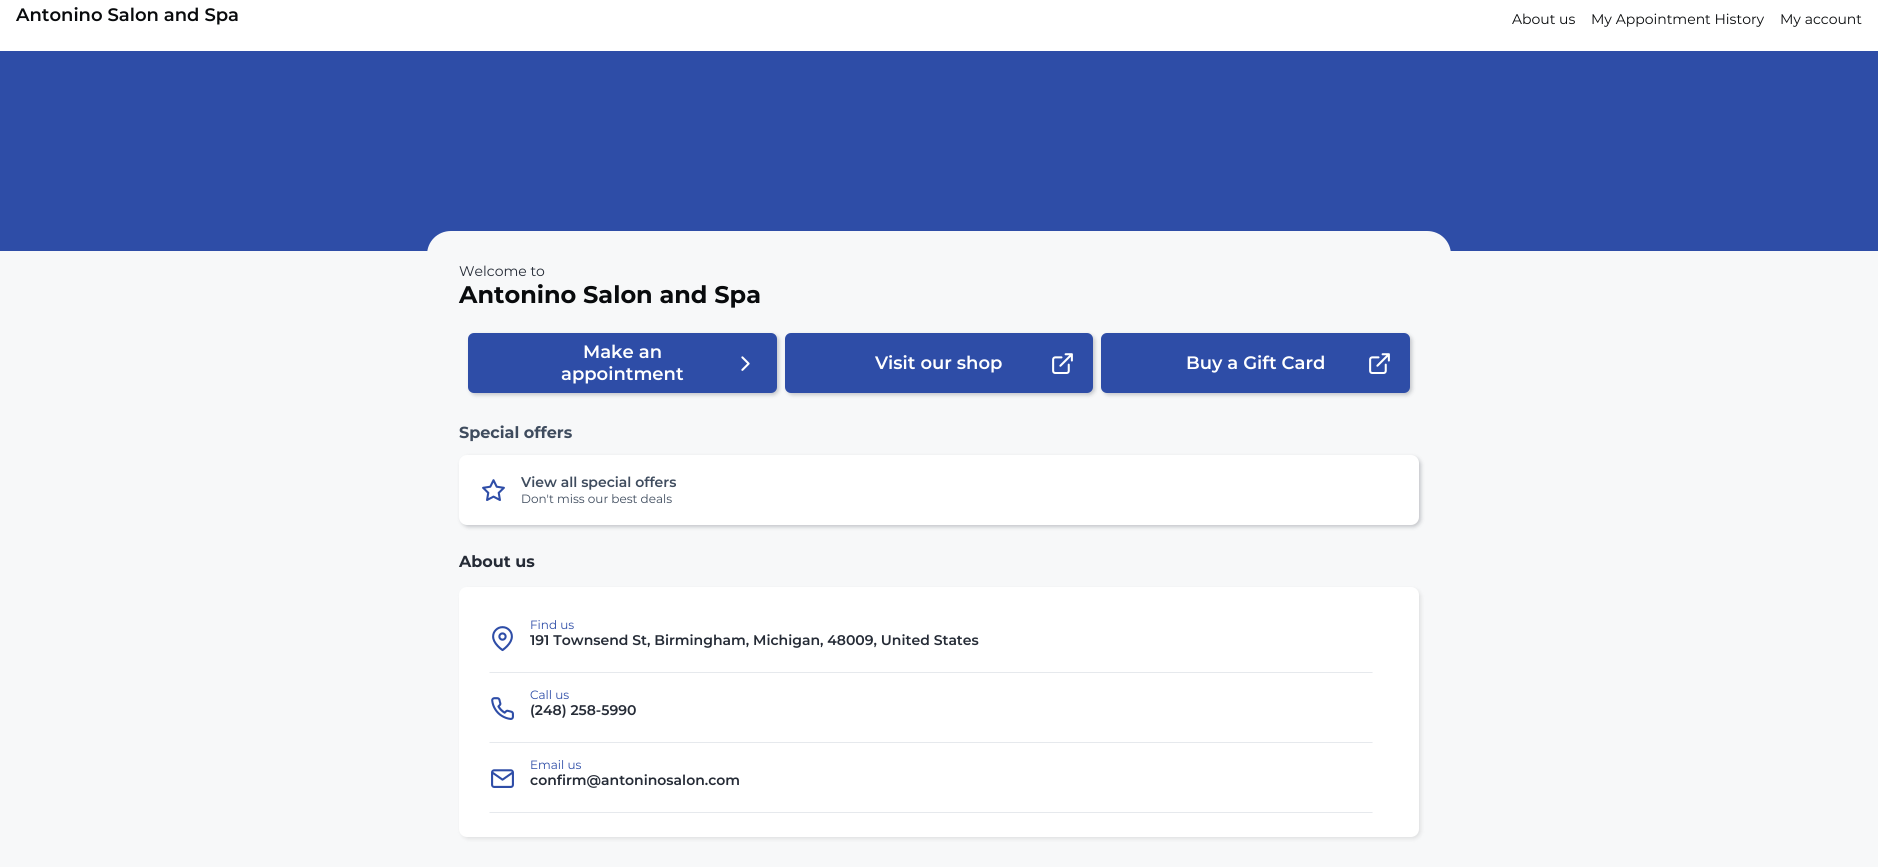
#include <cairo.h>
#include <math.h>
#include <stddef.h>


static void rgb(cairo_t *cr, int r, int g, int b)
{
	cairo_set_source_rgb(cr, r / 255.0, g / 255.0, b / 255.0);
}

static void face(cairo_t *cr, const char *family, double size, int italic, int bold)
{
	cairo_select_font_face(cr, family, italic ? CAIRO_FONT_SLANT_ITALIC : CAIRO_FONT_SLANT_NORMAL,
		bold ? CAIRO_FONT_WEIGHT_BOLD : CAIRO_FONT_WEIGHT_NORMAL);
	cairo_set_font_size(cr, size);
}

static void label(cairo_t *cr, double x, double y, const char *s)
{
	cairo_move_to(cr, x, y);
	cairo_show_text(cr, s);
}

static void rect(cairo_t *cr, double x, double y, double w, double h)
{
	cairo_rectangle(cr, x, y, w, h);
	cairo_fill(cr);
}

static void rrect(cairo_t *cr, double x, double y, double w, double h, double r)
{
	cairo_new_sub_path(cr);
	cairo_arc(cr, x + w - r, y + h - r, r, 0, M_PI / 2);
	cairo_arc(cr, x + r, y + h - r, r, M_PI / 2, M_PI);
	cairo_arc(cr, x + r, y + r, r, M_PI, 1.5 * M_PI);
	cairo_arc(cr, x + w - r, y + r, r, 1.5 * M_PI, 2 * M_PI);
	cairo_close_path(cr);
}

static void soft_shadow(cairo_t *cr, double x, double y, double w, double h, double r, double blur, double alpha)
{
	cairo_push_group_with_content(cr, CAIRO_CONTENT_ALPHA);
	cairo_set_operator(cr, CAIRO_OPERATOR_SOURCE);
	for (int i = 15; i >= -15 && fmin(w, h) + blur * i / 3 > 0; i -= 2) {
		double e = blur * i / 6;
		cairo_set_source_rgba(cr, 0, 0, 0, alpha * erfc((i - 1) / 8.5) / 2);
		rrect(cr, x - e, y - e, w + 2 * e, h + 2 * e, fmax(0, fmin(r + e + blur * .6, fmin(w, h) / 2 + e)));
		cairo_fill(cr);
	}
	cairo_pattern_t *soft = cairo_pop_group(cr);
	cairo_mask(cr, soft);
	cairo_pattern_destroy(soft);
}

static void image(cairo_t *cr, const char *path, double x, double y, double w, double h)
{
	cairo_surface_t *image = cairo_image_surface_create_from_png(path);
	cairo_save(cr);
	cairo_set_source_surface(cr, image, x, y);
	cairo_rectangle(cr, x, y, w, h);
	cairo_fill(cr);
	cairo_restore(cr);
	cairo_surface_destroy(image);
}

static void draw(cairo_t *cr) {
	rgb(cr, 247, 248, 249);
	cairo_paint(cr);
	rgb(cr, 255, 255, 255);
	rect(cr, 0, 0, 1878, 51);
	face(cr, "Montserrat SemiBold", 18, 0, 0);
	rgb(cr, 9, 11, 13);
	label(cr, 16, 21, "Antonino Salon and Spa");
	face(cr, "Montserrat", 14, 0, 0);
	label(cr, 1512, 24, "About us");
	label(cr, 1591, 24, "My Appointment History");
	label(cr, 1780, 24, "My account");
	rgb(cr, 46, 77, 167);
	rect(cr, 0, 51, 1878, 200);
	rgb(cr, 247, 248, 249);
	cairo_new_path(cr);
	cairo_move_to(cr, 451, 231);
	cairo_line_to(cr, 1427, 231);
	cairo_curve_to(cr, 1440.5, 231, 1451, 241.5, 1451, 255);
	cairo_line_to(cr, 1451, 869);
	cairo_line_to(cr, 427, 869);
	cairo_line_to(cr, 427, 255);
	cairo_curve_to(cr, 427, 241.5, 437.5, 231, 451, 231);
	cairo_close_path(cr);
	cairo_fill(cr);
	rgb(cr, 37, 43, 54);
	label(cr, 459, 276, "Welcome to");
	face(cr, "Montserrat", 24, 0, 1);
	rgb(cr, 9, 11, 13);
	label(cr, 459, 303, "Antonino Salon and Spa");
	rgb(cr, 40, 47, 60);
	soft_shadow(cr, 470, 335, 309, 60, 6, 2, 0.25);
	rgb(cr, 46, 77, 167);
	rrect(cr, 468, 333, 309, 60, 6);
	cairo_fill(cr);
	face(cr, "Montserrat SemiBold", 18, 0, 0);
	rgb(cr, 255, 255, 255);
	label(cr, 583, 358, "Make an");
	label(cr, 561, 380, "appointment");
	image(cr, "image0.png", 741, 356, 9, 15);
	rgb(cr, 40, 47, 60);
	soft_shadow(cr, 787, 335, 308, 60, 6, 2, 0.25);
	rgb(cr, 46, 77, 167);
	rrect(cr, 785, 333, 308, 60, 6);
	cairo_fill(cr);
	rgb(cr, 255, 255, 255);
	label(cr, 875, 369, "Visit our shop");
	image(cr, "image1.png", 1052, 353, 21, 21);
	rgb(cr, 40, 47, 60);
	soft_shadow(cr, 1103, 335, 309, 60, 6, 2, 0.25);
	rgb(cr, 46, 77, 167);
	rrect(cr, 1101, 333, 309, 60, 6);
	cairo_fill(cr);
	rgb(cr, 255, 255, 255);
	label(cr, 1186, 369, "Buy a Gift Card");
	image(cr, "image1.png", 1369, 353, 21, 21);
	face(cr, "Montserrat", 16, 0, 1);
	rgb(cr, 63, 76, 94);
	label(cr, 459, 438, "Special offers");
	rgb(cr, 40, 47, 60);
	soft_shadow(cr, 461, 457, 960, 70, 8, 2, 0.25);
	rgb(cr, 255, 255, 255);
	rrect(cr, 459, 455, 960, 70, 8);
	cairo_fill(cr);
	image(cr, "image2.png", 482, 479, 23, 22);
	face(cr, "Montserrat SemiBold", 14, 0, 0);
	rgb(cr, 63, 76, 94);
	label(cr, 521, 487, "View all special offers");
	face(cr, "Montserrat", 12, 0, 0);
	label(cr, 521, 503, "Don't miss our best deals");
	face(cr, "Montserrat", 16, 0, 1);
	rgb(cr, 37, 43, 54);
	label(cr, 459, 567, "About us");
	rgb(cr, 128, 128, 128);
	soft_shadow(cr, 461, 589, 960, 250, 8, 2, 0.2);
	rgb(cr, 255, 255, 255);
	rrect(cr, 459, 587, 960, 250, 8);
	cairo_fill(cr);
	rgb(cr, 230, 233, 237);
	cairo_new_path(cr);
	cairo_move_to(cr, 1373, 673);
	cairo_line_to(cr, 489, 673);
	cairo_line_to(cr, 490, 672);
	cairo_line_to(cr, 1372, 672);
	cairo_close_path(cr);
	cairo_fill(cr);
	image(cr, "image3.png", 492, 626, 21, 26);
	face(cr, "Montserrat", 12, 0, 0);
	rgb(cr, 46, 77, 167);
	label(cr, 530, 629, "Find us");
	face(cr, "Montserrat SemiBold", 14, 0, 0);
	rgb(cr, 37, 43, 54);
	label(cr, 530, 645, "191 Townsend St, Birmingham, Michigan, 48009, United States");
	rgb(cr, 230, 233, 237);
	cairo_new_path(cr);
	cairo_move_to(cr, 1373, 743);
	cairo_line_to(cr, 489, 743);
	cairo_line_to(cr, 490, 742);
	cairo_line_to(cr, 1372, 742);
	cairo_close_path(cr);
	cairo_fill(cr);
	image(cr, "image4.png", 491, 697, 23, 23);
	face(cr, "Montserrat", 12, 0, 0);
	rgb(cr, 46, 77, 167);
	label(cr, 530, 699, "Call us");
	face(cr, "Montserrat SemiBold", 14, 0, 0);
	rgb(cr, 37, 43, 54);
	label(cr, 530, 715, "(248) 258-5990");
	rgb(cr, 230, 233, 237);
	cairo_new_path(cr);
	cairo_move_to(cr, 1373, 813);
	cairo_line_to(cr, 489, 813);
	cairo_line_to(cr, 490, 812);
	cairo_line_to(cr, 1372, 812);
	cairo_close_path(cr);
	cairo_fill(cr);
	image(cr, "image5.png", 491, 769, 23, 19);
	face(cr, "Montserrat", 12, 0, 0);
	rgb(cr, 46, 77, 167);
	label(cr, 530, 769, "Email us");
	face(cr, "Montserrat SemiBold", 14, 0, 0);
	rgb(cr, 37, 43, 54);
	label(cr, 530, 785, "confirm@antoninosalon.com");
}

int main(void) {
	cairo_surface_t *surface = cairo_image_surface_create(CAIRO_FORMAT_RGB24, 1878, 867);
	cairo_t *cr = cairo_create(surface);
	cairo_font_options_t *options = cairo_font_options_create();
	cairo_font_options_set_hint_metrics(options, CAIRO_HINT_METRICS_OFF);
	cairo_font_options_set_hint_style(options, CAIRO_HINT_STYLE_NONE);
	cairo_set_font_options(cr, options);
	cairo_set_miter_limit(cr, 4);
	draw(cr);
	cairo_surface_write_to_png(surface, "render.png");
	cairo_font_options_destroy(options);
	cairo_destroy(cr);
	cairo_surface_destroy(surface);
	return 0;
}
